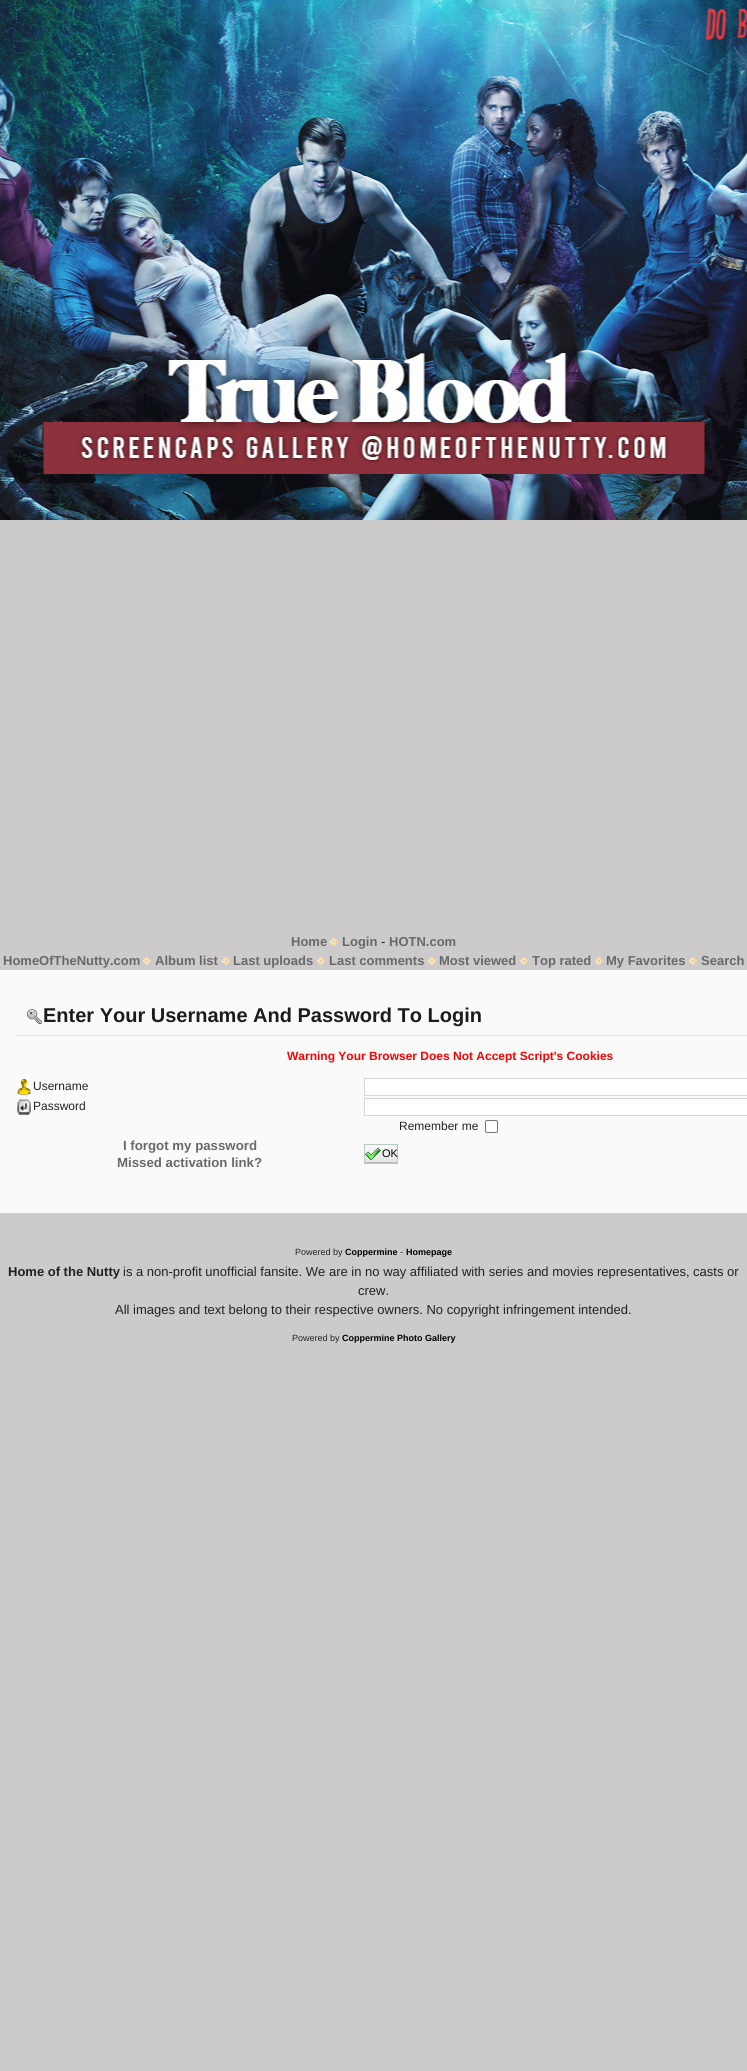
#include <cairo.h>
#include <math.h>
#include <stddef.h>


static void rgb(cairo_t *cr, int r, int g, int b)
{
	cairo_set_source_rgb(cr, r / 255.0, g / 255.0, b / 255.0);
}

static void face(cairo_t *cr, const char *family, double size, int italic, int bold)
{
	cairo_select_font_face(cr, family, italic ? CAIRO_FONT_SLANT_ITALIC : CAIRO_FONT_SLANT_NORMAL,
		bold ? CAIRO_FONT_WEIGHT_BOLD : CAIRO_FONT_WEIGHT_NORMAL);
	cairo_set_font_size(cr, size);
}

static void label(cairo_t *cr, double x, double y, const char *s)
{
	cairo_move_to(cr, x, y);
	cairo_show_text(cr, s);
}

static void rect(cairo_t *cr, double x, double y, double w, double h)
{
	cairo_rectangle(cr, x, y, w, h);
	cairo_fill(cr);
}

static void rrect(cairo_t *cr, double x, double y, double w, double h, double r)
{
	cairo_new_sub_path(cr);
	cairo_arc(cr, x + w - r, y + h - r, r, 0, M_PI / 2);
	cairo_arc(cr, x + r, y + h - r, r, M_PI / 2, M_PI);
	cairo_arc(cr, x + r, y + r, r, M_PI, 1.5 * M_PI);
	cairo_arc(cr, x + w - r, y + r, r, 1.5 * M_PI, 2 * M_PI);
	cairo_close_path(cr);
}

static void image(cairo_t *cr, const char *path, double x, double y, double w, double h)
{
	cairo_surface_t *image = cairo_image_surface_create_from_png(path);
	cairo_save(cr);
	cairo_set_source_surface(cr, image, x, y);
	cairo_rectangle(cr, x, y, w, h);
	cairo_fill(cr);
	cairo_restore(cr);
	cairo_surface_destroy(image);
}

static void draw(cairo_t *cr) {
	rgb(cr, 204, 202, 202);
	cairo_paint(cr);
	image(cr, "image0.png", 0, 0, 747, 520);
	face(cr, "Liberation Sans", 13, 0, 1);
	rgb(cr, 105, 105, 105);
	label(cr, 291, 946, "Home");
	image(cr, "image1.png", 330, 938, 8, 8);
	label(cr, 342, 946, "Login");
	face(cr, "Liberation Sans", 13, 0, 0);
	rgb(cr, 34, 34, 34);
	label(cr, 381, 946, "-");
	face(cr, "Liberation Sans", 13, 0, 1);
	rgb(cr, 105, 105, 105);
	label(cr, 389, 946, "HOTN.com");
	label(cr, 3, 965, "HomeOfTheNutty.com");
	image(cr, "image1.png", 143, 957, 8, 8);
	label(cr, 155, 965, "Album list");
	image(cr, "image1.png", 222, 957, 8, 8);
	label(cr, 233, 965, "Last uploads");
	image(cr, "image1.png", 317, 957, 8, 8);
	label(cr, 329, 965, "Last comments");
	image(cr, "image1.png", 428, 957, 8, 8);
	label(cr, 439, 965, "Most viewed");
	image(cr, "image1.png", 520, 957, 8, 8);
	label(cr, 532, 965, "Top rated");
	image(cr, "image1.png", 595, 957, 8, 8);
	label(cr, 606, 965, "My Favorites");
	image(cr, "image1.png", 689, 957, 8, 8);
	label(cr, 701, 965, "Search");
	rgb(cr, 250, 250, 250);
	rect(cr, 0, 970, 747, 243);
	rgb(cr, 225, 225, 225);
	rect(cr, 16, 1035, 731, 1);
	image(cr, "image2.png", 27, 1009, 15, 15);
	face(cr, "Liberation Sans", 20, 0, 1);
	rgb(cr, 29, 28, 26);
	label(cr, 43, 1022, "Enter Your Username And Password To Login");
	face(cr, "Liberation Sans", 12, 0, 1);
	rgb(cr, 255, 0, 0);
	label(cr, 287, 1060, "Warning Your Browser Does Not Accept Script's Cookies");
	image(cr, "image3.png", 17, 1079, 14, 16);
	face(cr, "Liberation Sans", 12, 0, 0);
	rgb(cr, 34, 34, 34);
	label(cr, 33, 1090, "Username");
	rgb(cr, 255, 255, 255);
	cairo_rectangle(cr, 364.5, 1078.5, 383, 17);
	cairo_fill_preserve(cr);
	rgb(cr, 209, 215, 220);
	cairo_set_line_width(cr, 1);
	cairo_stroke(cr);
	image(cr, "image4.png", 17, 1099, 14, 16);
	rgb(cr, 34, 34, 34);
	label(cr, 33, 1110, "Password");
	rgb(cr, 255, 255, 255);
	cairo_rectangle(cr, 364.5, 1098.5, 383, 17);
	cairo_fill_preserve(cr);
	rgb(cr, 209, 215, 220);
	cairo_stroke(cr);
	rgb(cr, 34, 34, 34);
	label(cr, 399, 1130, "Remember me");
	rgb(cr, 255, 255, 255);
	rrect(cr, 485.5, 1120.5, 12, 12, 1.5);
	cairo_fill_preserve(cr);
	rgb(cr, 118, 118, 118);
	cairo_stroke(cr);
	face(cr, "Liberation Sans", 13.25, 0, 1);
	rgb(cr, 105, 105, 105);
	label(cr, 123, 1150, "I forgot my password");
	label(cr, 117, 1167, "Missed activation link?");
	image(cr, "image5.png", 365, 1145, 32, 18);
	cairo_rectangle(cr, 364.5, 1144.5, 33, 19);
	rgb(cr, 185, 203, 193);
	cairo_stroke(cr);
	image(cr, "image6.png", 365, 1148, 16, 12);
	face(cr, "Liberation Sans", 11, 0, 0);
	rgb(cr, 0, 0, 0);
	label(cr, 382, 1157, "OK");
	face(cr, "Liberation Sans", 9, 0, 0);
	rgb(cr, 34, 34, 34);
	label(cr, 295, 1255, "Powered by");
	face(cr, "Liberation Sans", 9, 0, 1);
	rgb(cr, 0, 0, 0);
	label(cr, 345, 1255, "Coppermine");
	face(cr, "Liberation Sans", 9, 0, 0);
	rgb(cr, 34, 34, 34);
	label(cr, 400, 1255, "-");
	face(cr, "Liberation Sans", 9, 0, 1);
	rgb(cr, 0, 0, 0);
	label(cr, 406, 1255, "Homepage");
	face(cr, "Liberation Sans", 13, 0, 1);
	rgb(cr, 34, 34, 34);
	label(cr, 8, 1276, "Home of the Nutty");
	face(cr, "Liberation Sans", 13, 0, 0);
	label(cr, 123, 1276, "is a non-profit unofficial fansite. We are in no way affiliated with series and movies representatives, casts or");
	label(cr, 358, 1295, "crew.");
	label(cr, 115, 1314, "All images and text belong to their respective owners. No copyright infringement intended.");
	face(cr, "Liberation Sans", 9, 0, 0);
	label(cr, 292, 1341, "Powered by");
	face(cr, "Liberation Sans", 9, 0, 1);
	rgb(cr, 0, 0, 0);
	label(cr, 342, 1341, "Coppermine Photo Gallery");
}

int main(void) {
	cairo_surface_t *surface = cairo_image_surface_create(CAIRO_FORMAT_RGB24, 747, 2071);
	cairo_t *cr = cairo_create(surface);
	cairo_font_options_t *options = cairo_font_options_create();
	cairo_font_options_set_hint_metrics(options, CAIRO_HINT_METRICS_OFF);
	cairo_font_options_set_hint_style(options, CAIRO_HINT_STYLE_NONE);
	cairo_set_font_options(cr, options);
	cairo_set_miter_limit(cr, 4);
	draw(cr);
	cairo_surface_write_to_png(surface, "render.png");
	cairo_font_options_destroy(options);
	cairo_destroy(cr);
	cairo_surface_destroy(surface);
	return 0;
}
